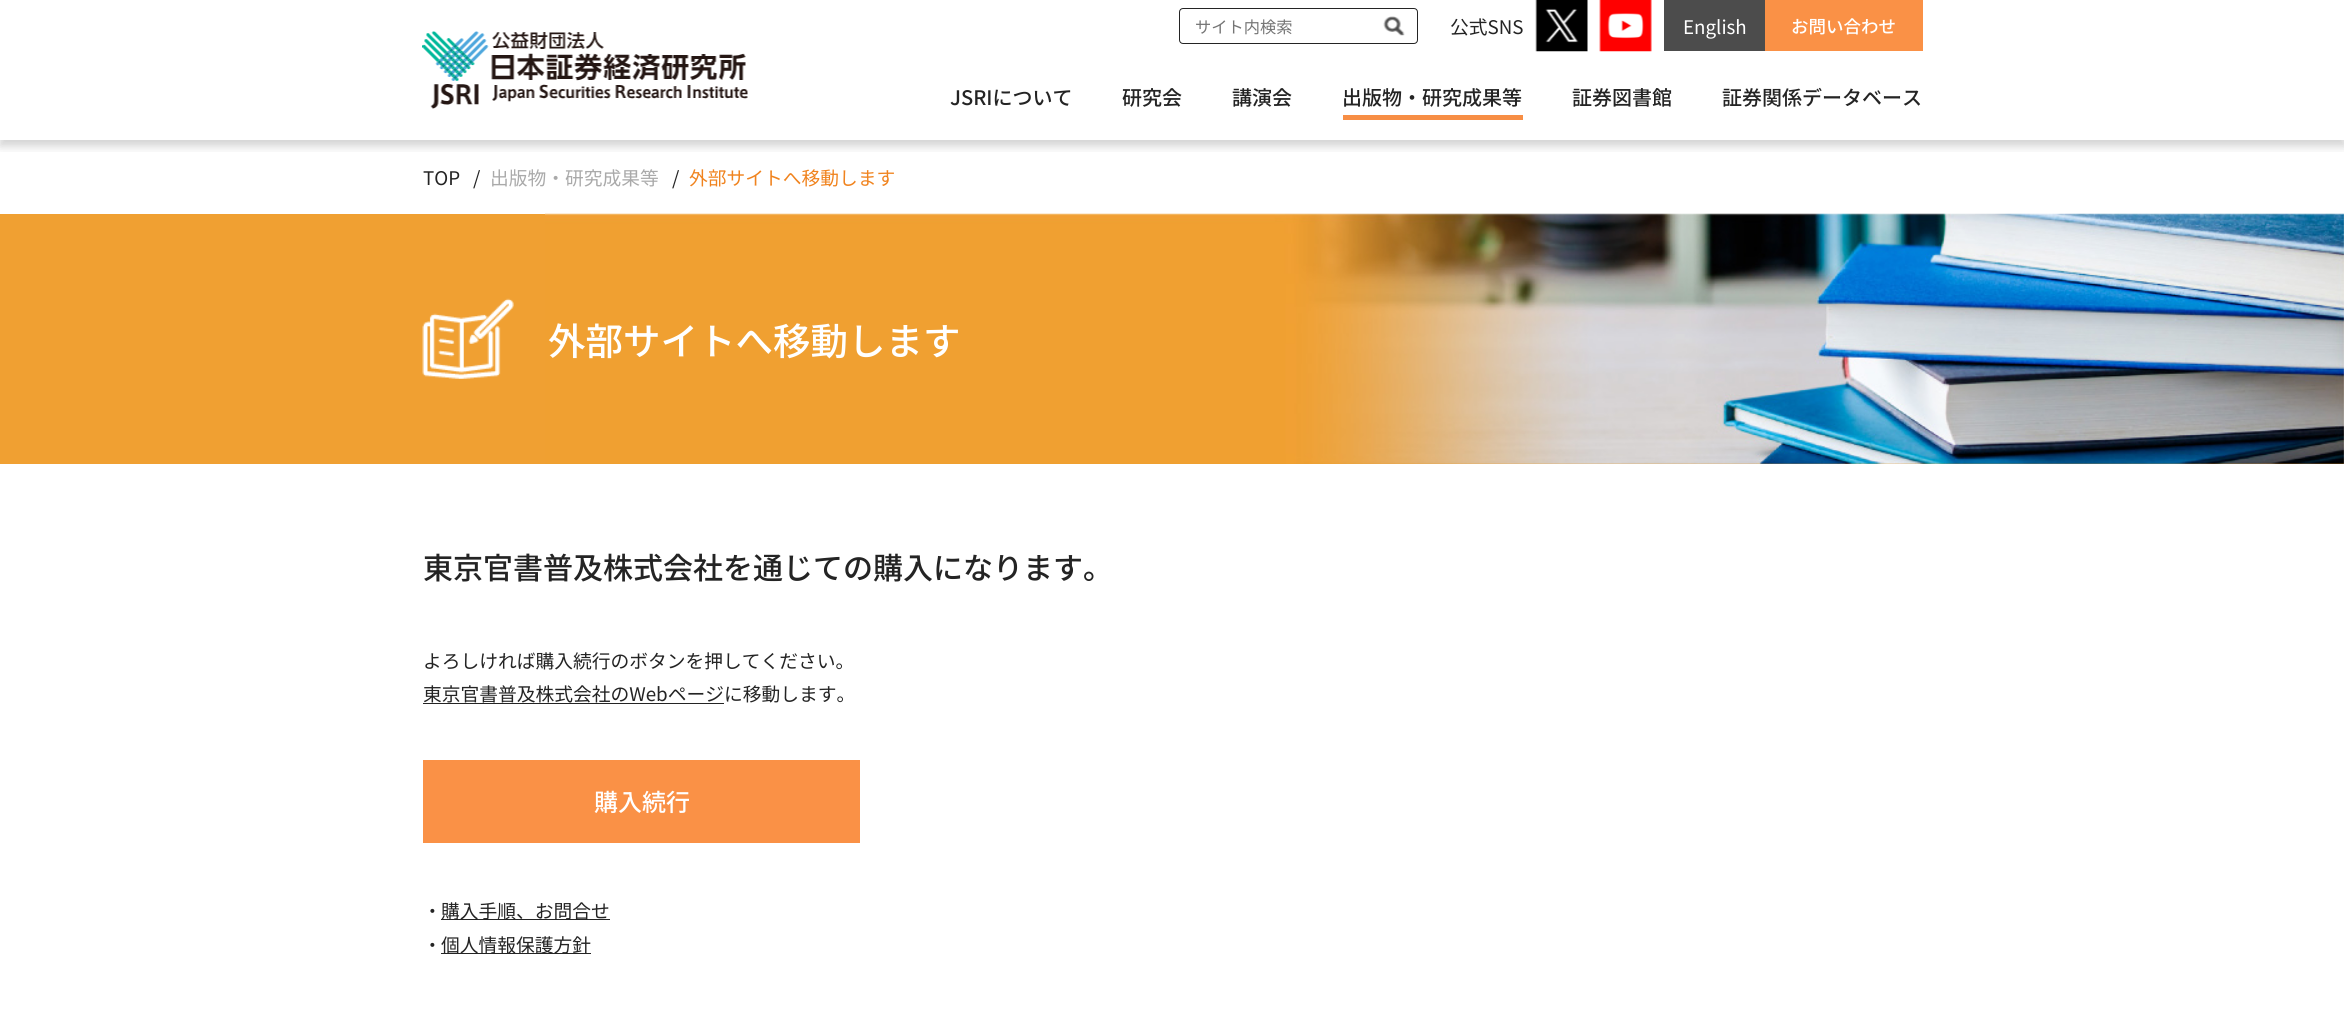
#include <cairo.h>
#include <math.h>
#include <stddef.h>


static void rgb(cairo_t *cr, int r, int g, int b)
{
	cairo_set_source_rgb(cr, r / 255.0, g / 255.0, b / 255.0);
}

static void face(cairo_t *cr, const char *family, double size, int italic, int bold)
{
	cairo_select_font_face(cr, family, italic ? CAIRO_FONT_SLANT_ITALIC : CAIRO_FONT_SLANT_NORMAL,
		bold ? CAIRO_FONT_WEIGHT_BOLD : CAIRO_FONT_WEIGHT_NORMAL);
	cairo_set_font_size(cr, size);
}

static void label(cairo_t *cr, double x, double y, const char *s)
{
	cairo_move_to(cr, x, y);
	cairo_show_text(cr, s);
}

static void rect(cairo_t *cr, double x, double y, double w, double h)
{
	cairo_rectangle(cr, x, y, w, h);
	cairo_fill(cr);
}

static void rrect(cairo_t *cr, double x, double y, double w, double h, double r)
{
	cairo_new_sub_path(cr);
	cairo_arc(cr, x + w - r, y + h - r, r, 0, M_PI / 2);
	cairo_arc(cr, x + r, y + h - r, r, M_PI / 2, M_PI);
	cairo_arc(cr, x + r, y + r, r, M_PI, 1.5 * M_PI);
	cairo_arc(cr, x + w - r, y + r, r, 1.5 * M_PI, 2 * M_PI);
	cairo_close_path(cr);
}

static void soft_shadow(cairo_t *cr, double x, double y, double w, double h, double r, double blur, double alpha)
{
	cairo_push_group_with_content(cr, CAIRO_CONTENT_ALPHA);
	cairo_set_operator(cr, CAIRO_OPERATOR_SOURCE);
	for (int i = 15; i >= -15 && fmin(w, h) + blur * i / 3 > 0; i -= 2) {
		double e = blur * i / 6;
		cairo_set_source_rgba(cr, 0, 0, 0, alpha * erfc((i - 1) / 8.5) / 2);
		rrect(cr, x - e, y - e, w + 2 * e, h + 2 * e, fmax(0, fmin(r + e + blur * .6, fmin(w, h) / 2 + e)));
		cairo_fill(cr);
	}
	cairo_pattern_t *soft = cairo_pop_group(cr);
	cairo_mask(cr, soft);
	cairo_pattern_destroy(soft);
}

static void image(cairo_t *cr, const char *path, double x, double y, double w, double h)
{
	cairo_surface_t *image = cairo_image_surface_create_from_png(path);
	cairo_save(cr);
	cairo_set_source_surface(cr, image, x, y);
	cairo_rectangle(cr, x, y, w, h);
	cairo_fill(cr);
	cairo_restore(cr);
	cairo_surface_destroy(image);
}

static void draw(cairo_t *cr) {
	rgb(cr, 255, 255, 255);
	cairo_paint(cr);
	cairo_save(cr);
	cairo_rectangle(cr, 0, 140, 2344, 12);
	cairo_clip(cr);
	rgb(cr, 0, 0, 0);
	soft_shadow(cr, 0, 6, 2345, 140, 0, 5, 0.18);
	cairo_restore(cr);
	image(cr, "image0.png", 422, 31, 326, 78);
	rrect(cr, 1179.5, 8.5, 238, 35, 3.5);
	rgb(cr, 36, 36, 36);
	cairo_set_line_width(cr, 1);
	cairo_stroke(cr);
	face(cr, "Noto Sans JP", 16.25, 0, 0);
	rgb(cr, 117, 117, 117);
	label(cr, 1195, 33, "サイト内検索");
	image(cr, "image1.png", 1383, 16, 22, 20);
	face(cr, "Noto Sans JP", 18.75, 0, 0);
	rgb(cr, 36, 36, 36);
	label(cr, 1450, 34, "公式SNS");
	image(cr, "image2.png", 1535, 0, 53, 52);
	image(cr, "image3.png", 1599, 0, 53, 52);
	rgb(cr, 76, 76, 76);
	rect(cr, 1664, 0, 101, 51);
	rgb(cr, 255, 255, 255);
	label(cr, 1683, 34, "English");
	rgb(cr, 250, 145, 70);
	rect(cr, 1765, 0, 158, 51);
	face(cr, "Noto Sans JP Medium", 17.5, 0, 0);
	rgb(cr, 255, 255, 255);
	label(cr, 1791, 33, "お問い合わせ");
	face(cr, "Noto Sans JP Medium", 20, 0, 0);
	rgb(cr, 36, 36, 36);
	label(cr, 950, 105, "JSRIについて");
	label(cr, 1122, 105, "研究会");
	label(cr, 1232, 105, "講演会");
	label(cr, 1342, 105, "出版物・研究成果等");
	rgb(cr, 247, 142, 69);
	rect(cr, 1343, 115, 180, 5);
	rgb(cr, 36, 36, 36);
	label(cr, 1572, 105, "証券図書館");
	label(cr, 1722, 105, "証券関係データベース");
	face(cr, "Noto Sans JP", 18.75, 0, 0);
	label(cr, 423, 185, "TOP");
	label(cr, 473, 185, "/");
	rgb(cr, 170, 170, 170);
	label(cr, 490, 185, "出版物・研究成果等");
	rgb(cr, 36, 36, 36);
	label(cr, 672, 185, "/");
	rgb(cr, 240, 131, 30);
	label(cr, 689, 185, "外部サイトへ移動します");
	rgb(cr, 240, 160, 50);
	rect(cr, 0, 214, 2344, 250);
	image(cr, "image4.png", 545, 213, 1799, 251);
	image(cr, "image5.png", 422, 298, 92, 81);
	face(cr, "Noto Sans JP Medium", 37.5, 0, 0);
	rgb(cr, 255, 255, 255);
	label(cr, 548, 355, "外部サイトへ移動します");
	face(cr, "Noto Sans JP Medium", 30, 0, 0);
	rgb(cr, 36, 36, 36);
	label(cr, 423, 579, "東京官書普及株式会社を通じての購入になります。");
	face(cr, "Noto Sans JP", 18.75, 0, 0);
	label(cr, 423, 668, "よろしければ購入続行のボタンを押してください。");
	label(cr, 423, 701, "東京官書普及株式会社のWebページに移動します。");
	rect(cr, 423, 703, 301, 1);
	rgb(cr, 250, 145, 70);
	rect(cr, 423, 760, 437, 83);
	face(cr, "Noto Sans JP Medium", 24, 0, 0);
	rgb(cr, 255, 255, 255);
	label(cr, 594, 811, "購入続行");
	face(cr, "Noto Sans JP", 18.75, 0, 0);
	rgb(cr, 36, 36, 36);
	label(cr, 423, 918, "・");
	rect(cr, 441, 919, 169, 1);
	label(cr, 441, 918, "購入手順、お問合せ");
	label(cr, 423, 952, "・");
	rect(cr, 441, 953, 150, 1);
	label(cr, 441, 952, "個人情報保護方針");
}

int main(void) {
	cairo_surface_t *surface = cairo_image_surface_create(CAIRO_FORMAT_RGB24, 2344, 1036);
	cairo_t *cr = cairo_create(surface);
	cairo_font_options_t *options = cairo_font_options_create();
	cairo_font_options_set_hint_metrics(options, CAIRO_HINT_METRICS_OFF);
	cairo_font_options_set_hint_style(options, CAIRO_HINT_STYLE_NONE);
	cairo_set_font_options(cr, options);
	cairo_set_miter_limit(cr, 4);
	draw(cr);
	cairo_surface_write_to_png(surface, "render.png");
	cairo_font_options_destroy(options);
	cairo_destroy(cr);
	cairo_surface_destroy(surface);
	return 0;
}
